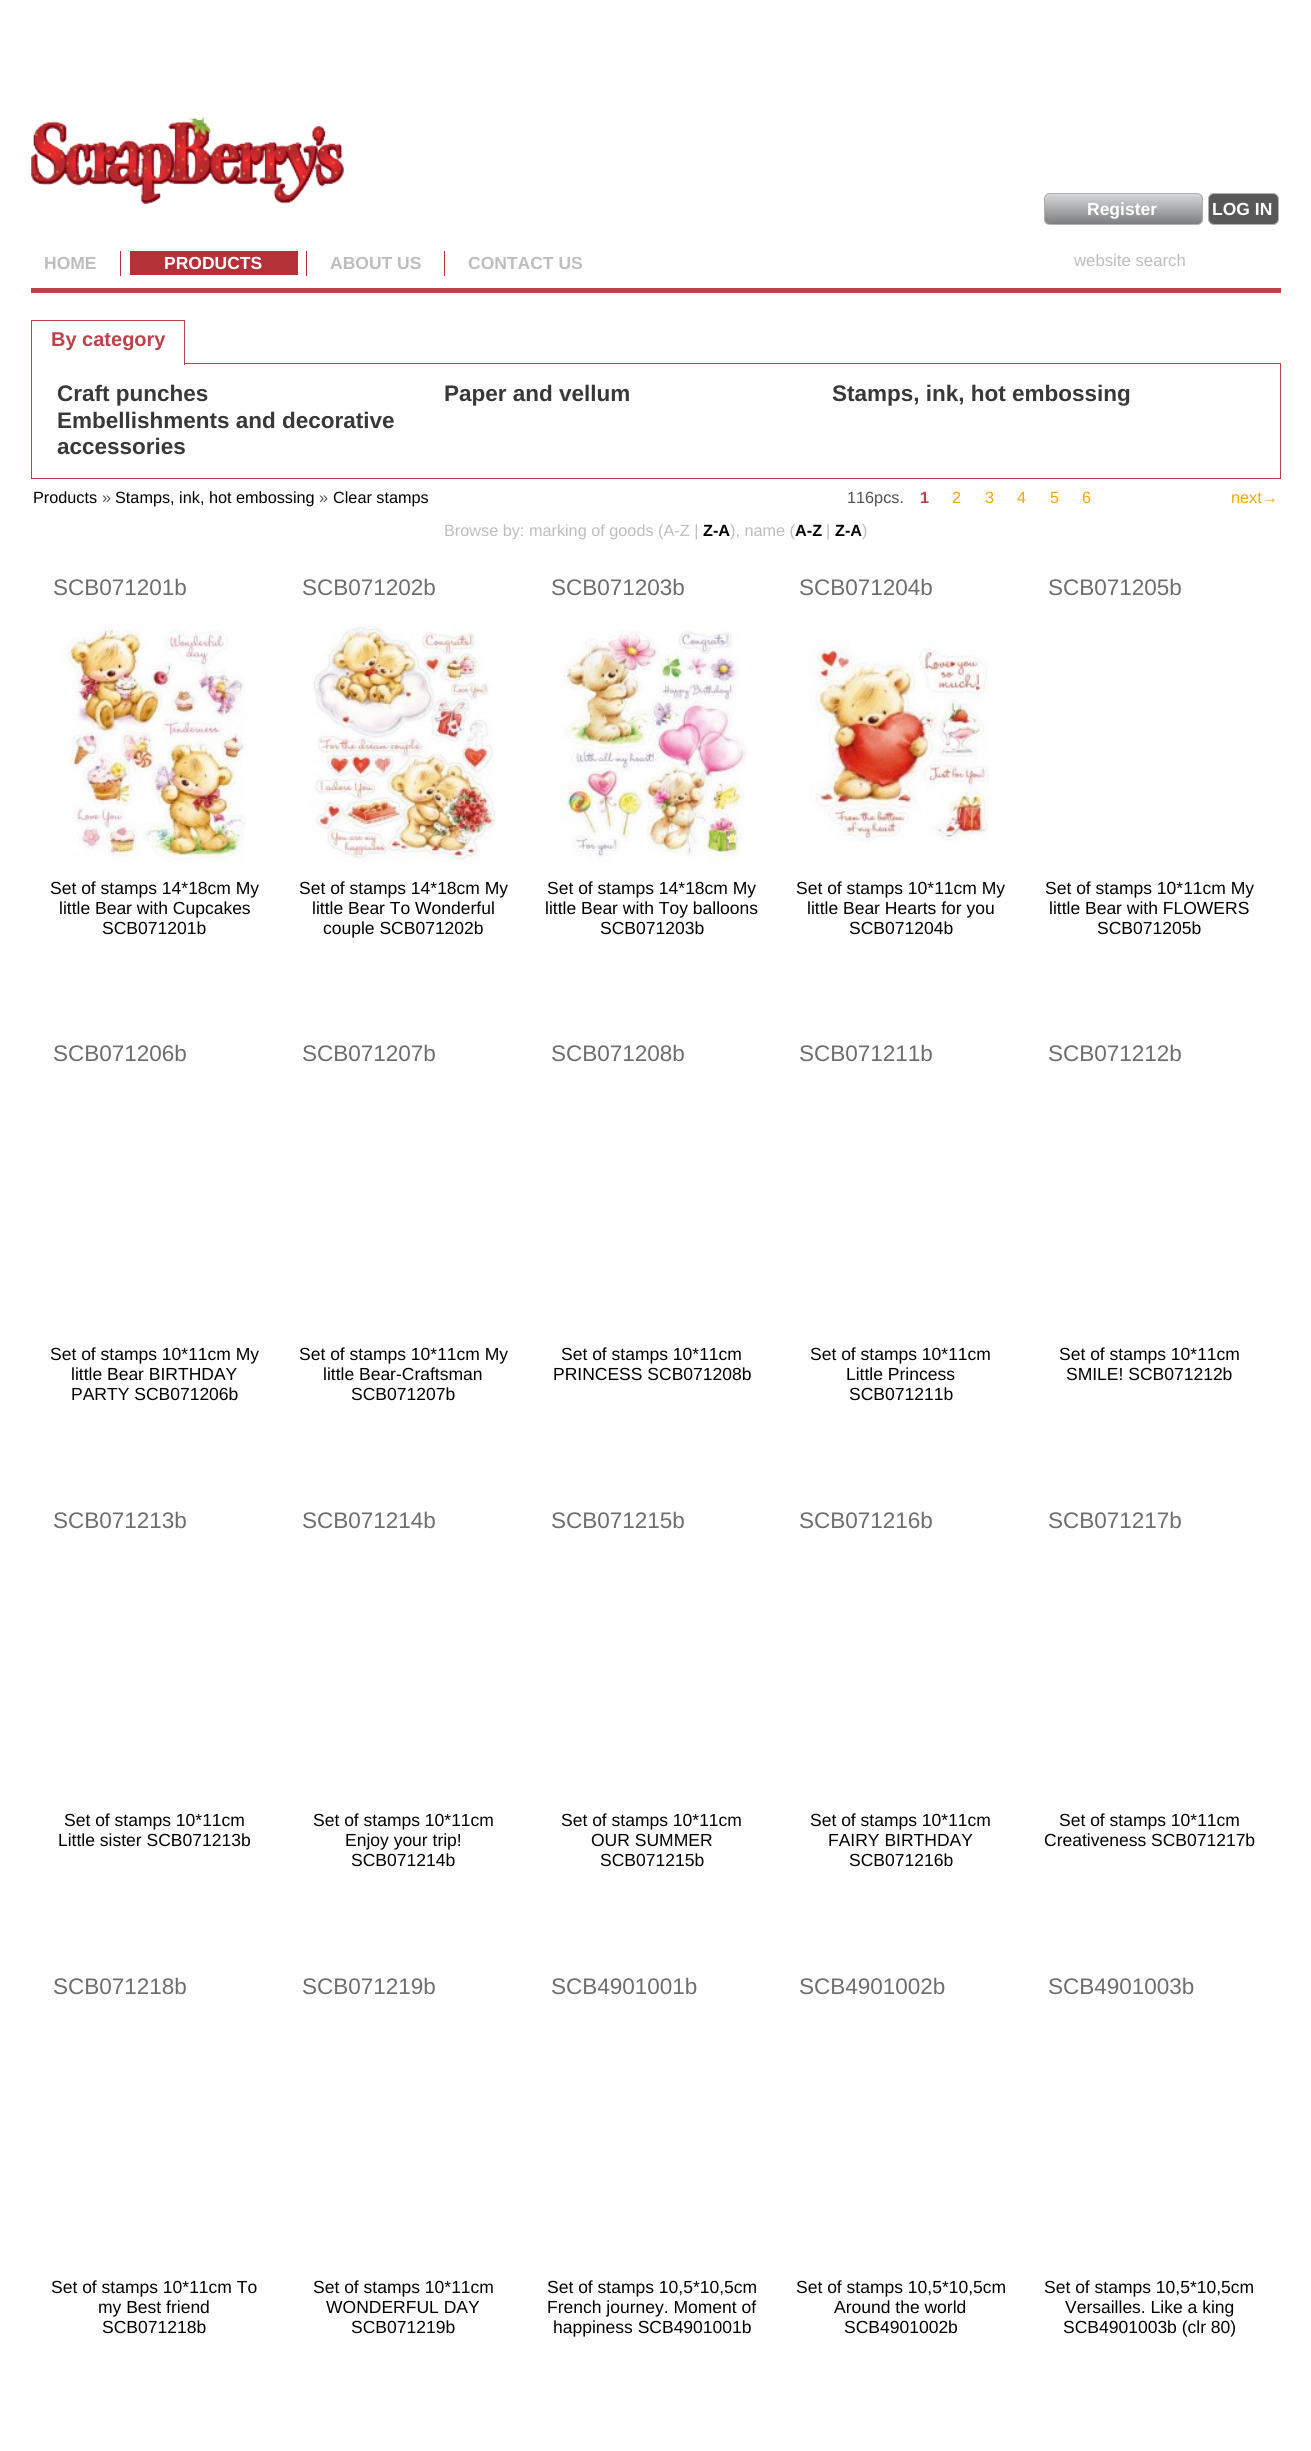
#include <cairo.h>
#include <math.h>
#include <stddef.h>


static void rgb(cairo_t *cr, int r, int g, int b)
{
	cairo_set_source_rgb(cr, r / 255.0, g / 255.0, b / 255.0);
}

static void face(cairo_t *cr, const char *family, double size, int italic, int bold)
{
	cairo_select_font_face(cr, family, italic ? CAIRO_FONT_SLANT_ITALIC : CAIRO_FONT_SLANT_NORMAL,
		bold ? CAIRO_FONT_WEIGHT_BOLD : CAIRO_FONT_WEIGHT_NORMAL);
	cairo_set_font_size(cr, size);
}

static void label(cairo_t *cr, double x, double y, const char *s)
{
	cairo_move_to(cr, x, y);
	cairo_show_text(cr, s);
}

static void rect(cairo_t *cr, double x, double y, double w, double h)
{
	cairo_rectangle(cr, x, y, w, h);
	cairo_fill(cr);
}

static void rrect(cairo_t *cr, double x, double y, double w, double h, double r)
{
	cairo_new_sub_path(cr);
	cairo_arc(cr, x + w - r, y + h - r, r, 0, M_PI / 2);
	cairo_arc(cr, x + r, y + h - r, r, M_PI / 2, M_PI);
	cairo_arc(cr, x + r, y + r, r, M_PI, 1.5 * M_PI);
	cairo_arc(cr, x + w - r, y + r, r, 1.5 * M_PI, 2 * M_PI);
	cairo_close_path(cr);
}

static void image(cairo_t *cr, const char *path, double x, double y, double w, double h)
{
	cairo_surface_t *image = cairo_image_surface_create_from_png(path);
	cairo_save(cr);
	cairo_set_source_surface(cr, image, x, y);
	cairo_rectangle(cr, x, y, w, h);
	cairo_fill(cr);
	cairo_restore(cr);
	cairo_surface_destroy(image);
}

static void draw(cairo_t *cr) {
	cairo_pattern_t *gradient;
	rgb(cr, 255, 255, 255);
	cairo_paint(cr);
	image(cr, "image0.png", 31, 117, 313, 87);
	cairo_save(cr);
	rrect(cr, 1044, 193, 159, 32, 6);
	cairo_clip(cr);
	gradient = cairo_pattern_create_linear(1123, 194, 1123, 224);
	cairo_pattern_add_color_stop_rgba(gradient, 0, 0.843, 0.847, 0.851, 1);
	cairo_pattern_add_color_stop_rgba(gradient, 1, 0.49, 0.49, 0.494, 1);
	cairo_set_source(cr, gradient);
	cairo_pattern_destroy(gradient);
	rect(cr, 1044, 194, 159, 30);
	cairo_restore(cr);
	rrect(cr, 1044.5, 193.5, 158, 31, 5.5);
	rgb(cr, 177, 177, 178);
	cairo_set_line_width(cr, 1);
	cairo_stroke(cr);
	face(cr, "Liberation Sans", 17.5, 0, 1);
	rgb(cr, 255, 255, 255);
	label(cr, 1087, 215, "Register");
	rgb(cr, 88, 88, 89);
	rrect(cr, 1208.5, 193.5, 70, 31, 5.5);
	cairo_fill_preserve(cr);
	rgb(cr, 177, 177, 178);
	cairo_stroke(cr);
	rgb(cr, 255, 255, 255);
	label(cr, 1212, 215, "LOG IN");
	rgb(cr, 186, 66, 72);
	rect(cr, 31, 288, 1250, 5);
	rgb(cr, 189, 189, 189);
	label(cr, 44, 269, "HOME");
	rgb(cr, 180, 49, 56);
	rect(cr, 120, 251, 1, 25);
	rect(cr, 130, 251, 168, 24);
	rgb(cr, 255, 255, 255);
	label(cr, 164, 269, "PRODUCTS");
	rgb(cr, 180, 49, 56);
	rect(cr, 306, 251, 1, 25);
	rgb(cr, 189, 189, 189);
	label(cr, 330, 269, "ABOUT US");
	rgb(cr, 180, 49, 56);
	rect(cr, 444, 251, 1, 25);
	rgb(cr, 189, 189, 189);
	label(cr, 468, 269, "CONTACT US");
	face(cr, "Liberation Sans", 16.75, 0, 0);
	label(cr, 1074, 266, "website search");
	cairo_rectangle(cr, 31.5, 363.5, 1249, 115);
	rgb(cr, 186, 66, 72);
	cairo_stroke(cr);
	rgb(cr, 255, 255, 255);
	rect(cr, 32, 363, 152, 1);
	rgb(cr, 186, 66, 72);
	rect(cr, 31, 320, 154, 1);
	rect(cr, 184, 320, 1, 45);
	rect(cr, 31, 320, 1, 45);
	face(cr, "Liberation Sans", 20, 0, 1);
	label(cr, 51, 346, "By category");
	face(cr, "Liberation Sans", 22.5, 0, 1);
	rgb(cr, 56, 56, 58);
	label(cr, 57, 401, "Craft punches");
	label(cr, 57, 428, "Embellishments and decorative");
	label(cr, 57, 454, "accessories");
	label(cr, 444, 401, "Paper and vellum");
	label(cr, 832, 401, "Stamps, ink, hot embossing");
	face(cr, "Liberation Sans", 16.25, 0, 0);
	rgb(cr, 0, 0, 0);
	label(cr, 33, 503, "Products");
	rgb(cr, 80, 80, 80);
	label(cr, 102, 503, "»");
	rgb(cr, 0, 0, 0);
	label(cr, 115, 503, "Stamps, ink, hot embossing");
	rgb(cr, 80, 80, 80);
	label(cr, 319, 503, "»");
	rgb(cr, 0, 0, 0);
	label(cr, 333, 503, "Clear stamps");
	rgb(cr, 80, 80, 80);
	label(cr, 847, 503, "116pcs.");
	face(cr, "Liberation Sans", 16.25, 0, 1);
	rgb(cr, 186, 66, 72);
	label(cr, 920, 503, "1");
	face(cr, "Liberation Sans", 16.25, 0, 0);
	rgb(cr, 255, 165, 0);
	label(cr, 952, 503, "2");
	label(cr, 985, 503, "3");
	label(cr, 1017, 503, "4");
	label(cr, 1050, 503, "5");
	label(cr, 1082, 503, "6");
	label(cr, 1231, 503, "next→");
	rgb(cr, 189, 189, 189);
	label(cr, 444, 536, "Browse by: marking of goods (A-Z |");
	face(cr, "Liberation Sans", 16.25, 0, 1);
	rgb(cr, 0, 0, 0);
	label(cr, 703, 536, "Z-A");
	face(cr, "Liberation Sans", 16.25, 0, 0);
	rgb(cr, 189, 189, 189);
	label(cr, 730, 536, "), name (");
	face(cr, "Liberation Sans", 16.25, 0, 1);
	rgb(cr, 0, 0, 0);
	label(cr, 795, 536, "A-Z");
	face(cr, "Liberation Sans", 16.25, 0, 0);
	rgb(cr, 189, 189, 189);
	label(cr, 826, 536, "|");
	face(cr, "Liberation Sans", 16.25, 0, 1);
	rgb(cr, 0, 0, 0);
	label(cr, 835, 536, "Z-A");
	face(cr, "Liberation Sans", 16.25, 0, 0);
	rgb(cr, 189, 189, 189);
	label(cr, 862, 536, ")");
	face(cr, "Liberation Sans", 22.5, 0, 0);
	rgb(cr, 109, 109, 109);
	label(cr, 53, 595, "SCB071201b");
	image(cr, "image1.png", 62, 622, 184, 241);
	face(cr, "Liberation Sans", 17.5, 0, 0);
	rgb(cr, 0, 0, 0);
	label(cr, 50, 894, "Set of stamps 14*18cm My");
	label(cr, 59, 914, "little Bear with Cupcakes");
	label(cr, 102, 934, "SCB071201b");
	face(cr, "Liberation Sans", 22.5, 0, 0);
	rgb(cr, 109, 109, 109);
	label(cr, 302, 595, "SCB071202b");
	image(cr, "image2.png", 311, 622, 185, 241);
	face(cr, "Liberation Sans", 17.5, 0, 0);
	rgb(cr, 0, 0, 0);
	label(cr, 299, 894, "Set of stamps 14*18cm My");
	label(cr, 312, 914, "little Bear To Wonderful");
	label(cr, 323, 934, "couple SCB071202b");
	face(cr, "Liberation Sans", 22.5, 0, 0);
	rgb(cr, 109, 109, 109);
	label(cr, 551, 595, "SCB071203b");
	image(cr, "image3.png", 560, 630, 187, 233);
	face(cr, "Liberation Sans", 17.5, 0, 0);
	rgb(cr, 0, 0, 0);
	label(cr, 547, 894, "Set of stamps 14*18cm My");
	label(cr, 545, 914, "little Bear with Toy balloons");
	label(cr, 600, 934, "SCB071203b");
	face(cr, "Liberation Sans", 22.5, 0, 0);
	rgb(cr, 109, 109, 109);
	label(cr, 799, 595, "SCB071204b");
	image(cr, "image4.png", 809, 640, 180, 202);
	face(cr, "Liberation Sans", 17.5, 0, 0);
	rgb(cr, 0, 0, 0);
	label(cr, 796, 894, "Set of stamps 10*11cm My");
	label(cr, 807, 914, "little Bear Hearts for you");
	label(cr, 849, 934, "SCB071204b");
	face(cr, "Liberation Sans", 22.5, 0, 0);
	rgb(cr, 109, 109, 109);
	label(cr, 1048, 595, "SCB071205b");
	face(cr, "Liberation Sans", 17.5, 0, 0);
	rgb(cr, 0, 0, 0);
	label(cr, 1045, 894, "Set of stamps 10*11cm My");
	label(cr, 1049, 914, "little Bear with FLOWERS");
	label(cr, 1097, 934, "SCB071205b");
	face(cr, "Liberation Sans", 22.5, 0, 0);
	rgb(cr, 109, 109, 109);
	label(cr, 53, 1061, "SCB071206b");
	face(cr, "Liberation Sans", 17.5, 0, 0);
	rgb(cr, 0, 0, 0);
	label(cr, 50, 1360, "Set of stamps 10*11cm My");
	label(cr, 71, 1380, "little Bear BIRTHDAY");
	label(cr, 71, 1400, "PARTY SCB071206b");
	face(cr, "Liberation Sans", 22.5, 0, 0);
	rgb(cr, 109, 109, 109);
	label(cr, 302, 1061, "SCB071207b");
	face(cr, "Liberation Sans", 17.5, 0, 0);
	rgb(cr, 0, 0, 0);
	label(cr, 299, 1360, "Set of stamps 10*11cm My");
	label(cr, 323, 1380, "little Bear-Craftsman");
	label(cr, 351, 1400, "SCB071207b");
	face(cr, "Liberation Sans", 22.5, 0, 0);
	rgb(cr, 109, 109, 109);
	label(cr, 551, 1061, "SCB071208b");
	face(cr, "Liberation Sans", 17.5, 0, 0);
	rgb(cr, 0, 0, 0);
	label(cr, 561, 1360, "Set of stamps 10*11cm");
	label(cr, 553, 1380, "PRINCESS SCB071208b");
	face(cr, "Liberation Sans", 22.5, 0, 0);
	rgb(cr, 109, 109, 109);
	label(cr, 799, 1061, "SCB071211b");
	face(cr, "Liberation Sans", 17.5, 0, 0);
	rgb(cr, 0, 0, 0);
	label(cr, 810, 1360, "Set of stamps 10*11cm");
	label(cr, 846, 1380, "Little Princess");
	label(cr, 849, 1400, "SCB071211b");
	face(cr, "Liberation Sans", 22.5, 0, 0);
	rgb(cr, 109, 109, 109);
	label(cr, 1048, 1061, "SCB071212b");
	face(cr, "Liberation Sans", 17.5, 0, 0);
	rgb(cr, 0, 0, 0);
	label(cr, 1059, 1360, "Set of stamps 10*11cm");
	label(cr, 1066, 1380, "SMILE! SCB071212b");
	face(cr, "Liberation Sans", 22.5, 0, 0);
	rgb(cr, 109, 109, 109);
	label(cr, 53, 1528, "SCB071213b");
	face(cr, "Liberation Sans", 17.5, 0, 0);
	rgb(cr, 0, 0, 0);
	label(cr, 64, 1826, "Set of stamps 10*11cm");
	label(cr, 58, 1846, "Little sister SCB071213b");
	face(cr, "Liberation Sans", 22.5, 0, 0);
	rgb(cr, 109, 109, 109);
	label(cr, 302, 1528, "SCB071214b");
	face(cr, "Liberation Sans", 17.5, 0, 0);
	rgb(cr, 0, 0, 0);
	label(cr, 313, 1826, "Set of stamps 10*11cm");
	label(cr, 345, 1846, "Enjoy your trip!");
	label(cr, 351, 1866, "SCB071214b");
	face(cr, "Liberation Sans", 22.5, 0, 0);
	rgb(cr, 109, 109, 109);
	label(cr, 551, 1528, "SCB071215b");
	face(cr, "Liberation Sans", 17.5, 0, 0);
	rgb(cr, 0, 0, 0);
	label(cr, 561, 1826, "Set of stamps 10*11cm");
	label(cr, 591, 1846, "OUR SUMMER");
	label(cr, 600, 1866, "SCB071215b");
	face(cr, "Liberation Sans", 22.5, 0, 0);
	rgb(cr, 109, 109, 109);
	label(cr, 799, 1528, "SCB071216b");
	face(cr, "Liberation Sans", 17.5, 0, 0);
	rgb(cr, 0, 0, 0);
	label(cr, 810, 1826, "Set of stamps 10*11cm");
	label(cr, 828, 1846, "FAIRY BIRTHDAY");
	label(cr, 849, 1866, "SCB071216b");
	face(cr, "Liberation Sans", 22.5, 0, 0);
	rgb(cr, 109, 109, 109);
	label(cr, 1048, 1528, "SCB071217b");
	face(cr, "Liberation Sans", 17.5, 0, 0);
	rgb(cr, 0, 0, 0);
	label(cr, 1059, 1826, "Set of stamps 10*11cm");
	label(cr, 1044, 1846, "Creativeness SCB071217b");
	face(cr, "Liberation Sans", 22.5, 0, 0);
	rgb(cr, 109, 109, 109);
	label(cr, 53, 1994, "SCB071218b");
	face(cr, "Liberation Sans", 17.5, 0, 0);
	rgb(cr, 0, 0, 0);
	label(cr, 51, 2293, "Set of stamps 10*11cm To");
	label(cr, 98, 2313, "my Best friend");
	label(cr, 102, 2333, "SCB071218b");
	face(cr, "Liberation Sans", 22.5, 0, 0);
	rgb(cr, 109, 109, 109);
	label(cr, 302, 1994, "SCB071219b");
	face(cr, "Liberation Sans", 17.5, 0, 0);
	rgb(cr, 0, 0, 0);
	label(cr, 313, 2293, "Set of stamps 10*11cm");
	label(cr, 326, 2313, "WONDERFUL DAY");
	label(cr, 351, 2333, "SCB071219b");
	face(cr, "Liberation Sans", 22.5, 0, 0);
	rgb(cr, 109, 109, 109);
	label(cr, 551, 1994, "SCB4901001b");
	face(cr, "Liberation Sans", 17.5, 0, 0);
	rgb(cr, 0, 0, 0);
	label(cr, 547, 2293, "Set of stamps 10,5*10,5cm");
	label(cr, 547, 2313, "French journey. Moment of");
	label(cr, 553, 2333, "happiness SCB4901001b");
	face(cr, "Liberation Sans", 22.5, 0, 0);
	rgb(cr, 109, 109, 109);
	label(cr, 799, 1994, "SCB4901002b");
	face(cr, "Liberation Sans", 17.5, 0, 0);
	rgb(cr, 0, 0, 0);
	label(cr, 796, 2293, "Set of stamps 10,5*10,5cm");
	label(cr, 834, 2313, "Around the world");
	label(cr, 844, 2333, "SCB4901002b");
	face(cr, "Liberation Sans", 22.5, 0, 0);
	rgb(cr, 109, 109, 109);
	label(cr, 1048, 1994, "SCB4901003b");
	face(cr, "Liberation Sans", 17.5, 0, 0);
	rgb(cr, 0, 0, 0);
	label(cr, 1044, 2293, "Set of stamps 10,5*10,5cm");
	label(cr, 1065, 2313, "Versailles. Like a king");
	label(cr, 1063, 2333, "SCB4901003b (clr 80)");
}

int main(void) {
	cairo_surface_t *surface = cairo_image_surface_create(CAIRO_FORMAT_RGB24, 1311, 2451);
	cairo_t *cr = cairo_create(surface);
	cairo_font_options_t *options = cairo_font_options_create();
	cairo_font_options_set_hint_metrics(options, CAIRO_HINT_METRICS_OFF);
	cairo_font_options_set_hint_style(options, CAIRO_HINT_STYLE_NONE);
	cairo_set_font_options(cr, options);
	cairo_set_miter_limit(cr, 4);
	draw(cr);
	cairo_surface_write_to_png(surface, "render.png");
	cairo_font_options_destroy(options);
	cairo_destroy(cr);
	cairo_surface_destroy(surface);
	return 0;
}
